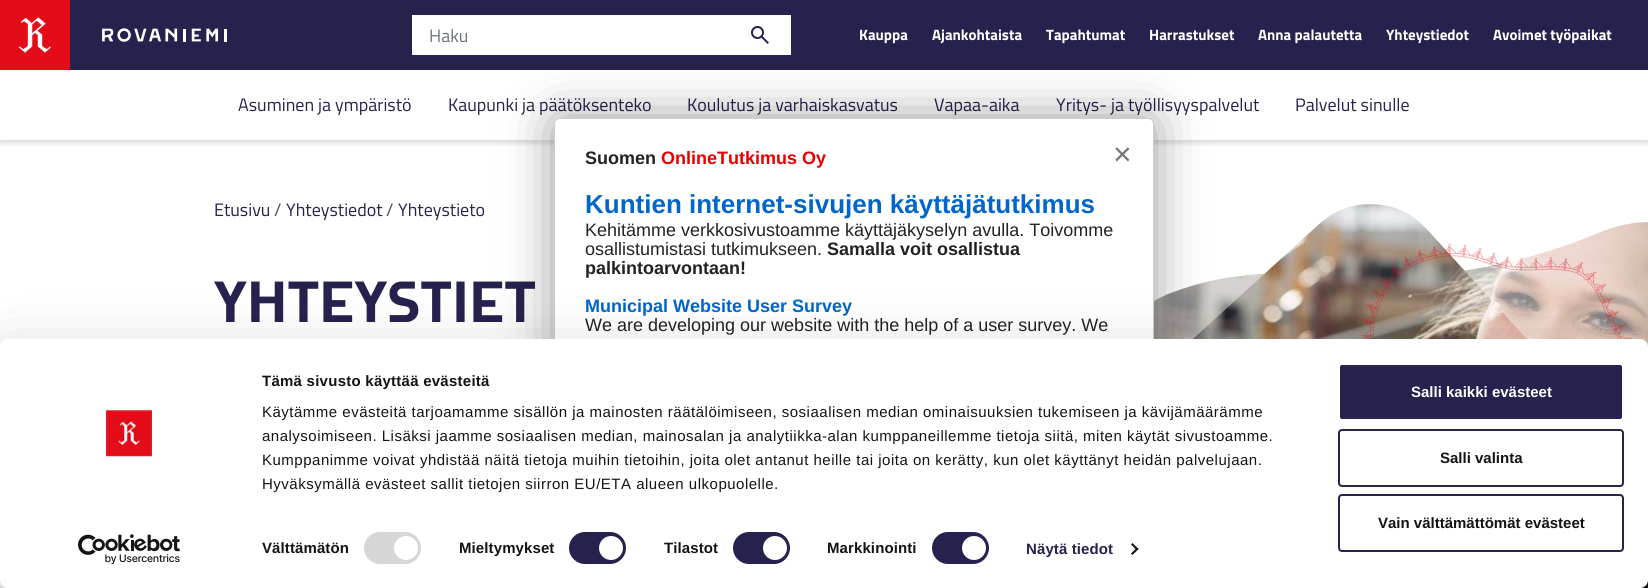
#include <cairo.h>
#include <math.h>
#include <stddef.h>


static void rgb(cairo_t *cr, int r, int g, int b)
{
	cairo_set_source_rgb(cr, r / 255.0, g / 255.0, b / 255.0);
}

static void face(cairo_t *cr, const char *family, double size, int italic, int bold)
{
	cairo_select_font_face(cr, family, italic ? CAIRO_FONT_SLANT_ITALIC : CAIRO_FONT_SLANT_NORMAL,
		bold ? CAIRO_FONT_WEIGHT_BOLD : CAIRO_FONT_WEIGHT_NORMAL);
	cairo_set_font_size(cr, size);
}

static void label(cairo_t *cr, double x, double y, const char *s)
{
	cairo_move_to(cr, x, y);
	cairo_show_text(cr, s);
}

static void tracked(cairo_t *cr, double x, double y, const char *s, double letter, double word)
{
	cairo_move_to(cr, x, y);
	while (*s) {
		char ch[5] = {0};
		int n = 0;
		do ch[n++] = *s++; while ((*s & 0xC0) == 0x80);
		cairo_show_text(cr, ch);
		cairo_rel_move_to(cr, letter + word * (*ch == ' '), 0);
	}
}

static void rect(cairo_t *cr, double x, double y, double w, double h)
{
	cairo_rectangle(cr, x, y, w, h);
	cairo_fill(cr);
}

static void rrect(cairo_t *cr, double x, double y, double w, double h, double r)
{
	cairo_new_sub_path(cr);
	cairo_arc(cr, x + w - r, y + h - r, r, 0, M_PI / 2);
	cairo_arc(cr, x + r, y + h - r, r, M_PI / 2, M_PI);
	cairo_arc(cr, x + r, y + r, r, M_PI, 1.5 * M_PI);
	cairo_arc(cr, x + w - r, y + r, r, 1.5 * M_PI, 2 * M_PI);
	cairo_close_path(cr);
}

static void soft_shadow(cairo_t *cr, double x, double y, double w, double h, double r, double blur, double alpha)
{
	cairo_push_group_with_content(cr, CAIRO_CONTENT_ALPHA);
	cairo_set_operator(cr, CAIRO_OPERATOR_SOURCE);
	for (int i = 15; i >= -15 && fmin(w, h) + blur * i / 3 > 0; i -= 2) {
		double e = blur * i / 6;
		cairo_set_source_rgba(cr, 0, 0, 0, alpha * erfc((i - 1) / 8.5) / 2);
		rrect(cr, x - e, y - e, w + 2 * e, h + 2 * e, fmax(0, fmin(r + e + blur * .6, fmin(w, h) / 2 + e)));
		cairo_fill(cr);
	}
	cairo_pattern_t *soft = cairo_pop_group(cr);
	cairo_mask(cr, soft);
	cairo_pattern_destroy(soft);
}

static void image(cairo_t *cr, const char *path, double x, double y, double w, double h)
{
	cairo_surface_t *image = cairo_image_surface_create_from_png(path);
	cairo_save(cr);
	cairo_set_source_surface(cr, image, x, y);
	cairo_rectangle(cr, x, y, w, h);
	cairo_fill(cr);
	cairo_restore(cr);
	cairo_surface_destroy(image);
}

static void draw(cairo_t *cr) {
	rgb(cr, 255, 255, 255);
	cairo_paint(cr);
	cairo_save(cr);
	cairo_rectangle(cr, 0, 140, 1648, 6);
	cairo_clip(cr);
	rgb(cr, 0, 0, 0);
	soft_shadow(cr, 0, 3, 1648, 140, 0, 3, 0.15);
	cairo_restore(cr);
	rgb(cr, 38, 34, 78);
	rect(cr, 70, 0, 1578, 70);
	rgb(cr, 226, 13, 24);
	rect(cr, 0, 0, 70, 70);
	image(cr, "image0.png", 18, 17, 33, 36);
	image(cr, "image1.png", 102, 28, 125, 14);
	rgb(cr, 255, 255, 255);
	cairo_rectangle(cr, 413, 16, 377, 38);
	cairo_fill_preserve(cr);
	cairo_stroke(cr);
	face(cr, "Titillium Web", 18, 0, 0);
	rgb(cr, 108, 117, 125);
	label(cr, 429, 42, "Haku");
	image(cr, "image2.png", 751, 26, 18, 18);
	face(cr, "Titillium Web", 15, 0, 1);
	rgb(cr, 255, 255, 255);
	label(cr, 859, 40, "Kauppa");
	label(cr, 932, 40, "Ajankohtaista");
	label(cr, 1046, 40, "Tapahtumat");
	label(cr, 1149, 40, "Harrastukset");
	label(cr, 1258, 40, "Anna palautetta");
	label(cr, 1386, 40, "Yhteystiedot");
	label(cr, 1493, 40, "Avoimet työpaikat");
	face(cr, "Titillium Web", 18, 0, 0);
	rgb(cr, 38, 34, 78);
	label(cr, 238, 111, "Asuminen ja ympäristö");
	label(cr, 448, 111, "Kaupunki ja päätöksenteko");
	label(cr, 687, 111, "Koulutus ja varhaiskasvatus");
	label(cr, 934, 111, "Vapaa-aika");
	label(cr, 1056, 111, "Yritys- ja työllisyyspalvelut");
	label(cr, 1295, 111, "Palvelut sinulle");
	label(cr, 214, 216, "Etusivu");
	rgb(cr, 77, 77, 77);
	label(cr, 274, 216, "/");
	rgb(cr, 38, 34, 78);
	label(cr, 286, 216, "Yhteystiedot");
	rgb(cr, 77, 77, 77);
	label(cr, 386, 216, "/");
	rgb(cr, 38, 34, 78);
	label(cr, 398, 216, "Yhteystieto");
	image(cr, "image4.png", 1154, 222, 494, 125);
	image(cr, "image3.png", 1193, 204, 455, 384);
	face(cr, "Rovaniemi", 59.5, 0, 1);
	label(cr, 214, 322, "YHTEYSTIET");
	image(cr, "image5.png", 1361, 243, 271, 96);
	rgb(cr, 0, 0, 0);
	soft_shadow(cr, 554, 118, 600, 387, 6, 25, 0.4);
	rgb(cr, 255, 255, 255);
	rrect(cr, 554.5, 118.5, 599, 386, 5.5);
	cairo_fill_preserve(cr);
	rgb(cr, 204, 204, 204);
	cairo_set_line_width(cr, 1);
	cairo_stroke(cr);
	face(cr, "Liberation Sans", 18, 0, 1);
	rgb(cr, 34, 34, 34);
	label(cr, 585, 164, "Suomen");
	rgb(cr, 230, 0, 0);
	label(cr, 661, 164, "OnlineTutkimus Oy");
	face(cr, "Liberation Sans", 32, 0, 0);
	rgb(cr, 119, 119, 119);
	label(cr, 1113, 165, "×");
	face(cr, "Liberation Sans", 26, 0, 1);
	rgb(cr, 0, 102, 204);
	label(cr, 585, 213, "Kuntien internet-sivujen käyttäjätutkimus");
	face(cr, "Liberation Sans", 18, 0, 0);
	rgb(cr, 34, 34, 34);
	label(cr, 585, 236, "Kehitämme verkkosivustoamme käyttäjäkyselyn avulla. Toivomme");
	label(cr, 585, 255, "osallistumistasi tutkimukseen.");
	face(cr, "Liberation Sans", 18, 0, 1);
	label(cr, 827, 255, "Samalla voit osallistua");
	label(cr, 585, 274, "palkintoarvontaan!");
	rgb(cr, 0, 102, 204);
	label(cr, 585, 312, "Municipal Website User Survey");
	face(cr, "Liberation Sans", 18, 0, 0);
	rgb(cr, 34, 34, 34);
	label(cr, 585, 331, "We are developing our website with the help of a user survey. We");
	rgb(cr, 0, 0, 0);
	soft_shadow(cr, 0, 369, 1648, 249, 8, 35, 0.3);
	rgb(cr, 255, 255, 255);
	rrect(cr, 0, 339, 1648, 249, 8);
	cairo_fill(cr);
	image(cr, "image6.png", 106, 410, 46, 47);
	image(cr, "image7.png", 78, 534, 102, 30);
	face(cr, "Liberation Sans", 15, 0, 1);
	rgb(cr, 20, 20, 20);
	tracked(cr, 262, 386, "Tämä sivusto käyttää evästeitä", 0.25, 0);
	face(cr, "Liberation Sans", 15, 0, 0);
	tracked(cr, 262, 417, "Käytämme evästeitä tarjoamamme sisällön ja mainosten räätälöimiseen, sosiaalisen median ominaisuuksien tukemiseen ja kävijämäärämme", 0.5, 0);
	tracked(cr, 262, 441, "analysoimiseen. Lisäksi jaamme sosiaalisen median, mainosalan ja analytiikka-alan kumppaneillemme tietoja siitä, miten käytät sivustoamme.", 0.5, 0);
	tracked(cr, 262, 465, "Kumppanimme voivat yhdistää näitä tietoja muihin tietoihin, joita olet antanut heille tai joita on kerätty, kun olet käyttänyt heidän palvelujaan.", 0.5, 0);
	tracked(cr, 262, 489, "Hyväksymällä evästeet sallit tietojen siirron EU/ETA alueen ulkopuolelle.", 0.5, 0);
	face(cr, "Liberation Sans", 15, 0, 1);
	tracked(cr, 262, 553, "Välttämätön", 0.1, 0);
	rgb(cr, 214, 214, 214);
	rrect(cr, 364, 532, 57, 32, 16);
	cairo_fill(cr);
	rgb(cr, 255, 255, 255);
	cairo_arc(cr, 406, 548, 12, 0, 2 * M_PI);
	cairo_fill(cr);
	rgb(cr, 20, 20, 20);
	tracked(cr, 459, 553, "Mieltymykset", 0.1, 0);
	rgb(cr, 38, 34, 78);
	rrect(cr, 569, 532, 57, 32, 16);
	cairo_fill(cr);
	rgb(cr, 255, 255, 255);
	cairo_arc(cr, 611, 548, 12, 0, 2 * M_PI);
	cairo_fill(cr);
	rgb(cr, 20, 20, 20);
	tracked(cr, 664, 553, "Tilastot", 0.1, 0);
	rgb(cr, 38, 34, 78);
	rrect(cr, 733, 532, 57, 32, 16);
	cairo_fill(cr);
	rgb(cr, 255, 255, 255);
	cairo_arc(cr, 775, 548, 12, 0, 2 * M_PI);
	cairo_fill(cr);
	rgb(cr, 20, 20, 20);
	tracked(cr, 827, 553, "Markkinointi", 0.1, 0);
	rgb(cr, 38, 34, 78);
	rrect(cr, 932, 532, 57, 32, 16);
	cairo_fill(cr);
	rgb(cr, 255, 255, 255);
	cairo_arc(cr, 974, 548, 12, 0, 2 * M_PI);
	cairo_fill(cr);
	rgb(cr, 38, 34, 78);
	tracked(cr, 1026, 554, "Näytä tiedot", 0.1, 0);
	rgb(cr, 20, 20, 20);
	cairo_new_path(cr);
	cairo_move_to(cr, 1132.5, 543);
	cairo_line_to(cr, 1138.5, 549);
	cairo_line_to(cr, 1137, 550.5);
	cairo_line_to(cr, 1131, 544.5);
	cairo_close_path(cr);
	cairo_fill(cr);
	cairo_new_path(cr);
	cairo_move_to(cr, 1137, 547.5);
	cairo_line_to(cr, 1138.5, 549);
	cairo_line_to(cr, 1132.5, 555);
	cairo_line_to(cr, 1131, 553.5);
	cairo_close_path(cr);
	cairo_fill(cr);
	rgb(cr, 38, 34, 78);
	rrect(cr, 1339, 364, 284, 56, 3);
	cairo_fill_preserve(cr);
	rgb(cr, 255, 255, 255);
	cairo_set_line_width(cr, 2);
	cairo_stroke(cr);
	label(cr, 1411, 397, "Salli kaikki evästeet");
	rrect(cr, 1339, 430, 284, 56, 3);
	rgb(cr, 38, 34, 78);
	cairo_stroke(cr);
	rgb(cr, 20, 20, 20);
	label(cr, 1440, 463, "Salli valinta");
	rrect(cr, 1339, 495, 284, 56, 3);
	rgb(cr, 38, 34, 78);
	cairo_stroke(cr);
	rgb(cr, 20, 20, 20);
	label(cr, 1378, 528, "Vain välttämättömät evästeet");
}

int main(void) {
	cairo_surface_t *surface = cairo_image_surface_create(CAIRO_FORMAT_RGB24, 1648, 588);
	cairo_t *cr = cairo_create(surface);
	cairo_font_options_t *options = cairo_font_options_create();
	cairo_font_options_set_hint_metrics(options, CAIRO_HINT_METRICS_OFF);
	cairo_font_options_set_hint_style(options, CAIRO_HINT_STYLE_NONE);
	cairo_set_font_options(cr, options);
	cairo_set_miter_limit(cr, 4);
	draw(cr);
	cairo_surface_write_to_png(surface, "render.png");
	cairo_font_options_destroy(options);
	cairo_destroy(cr);
	cairo_surface_destroy(surface);
	return 0;
}
